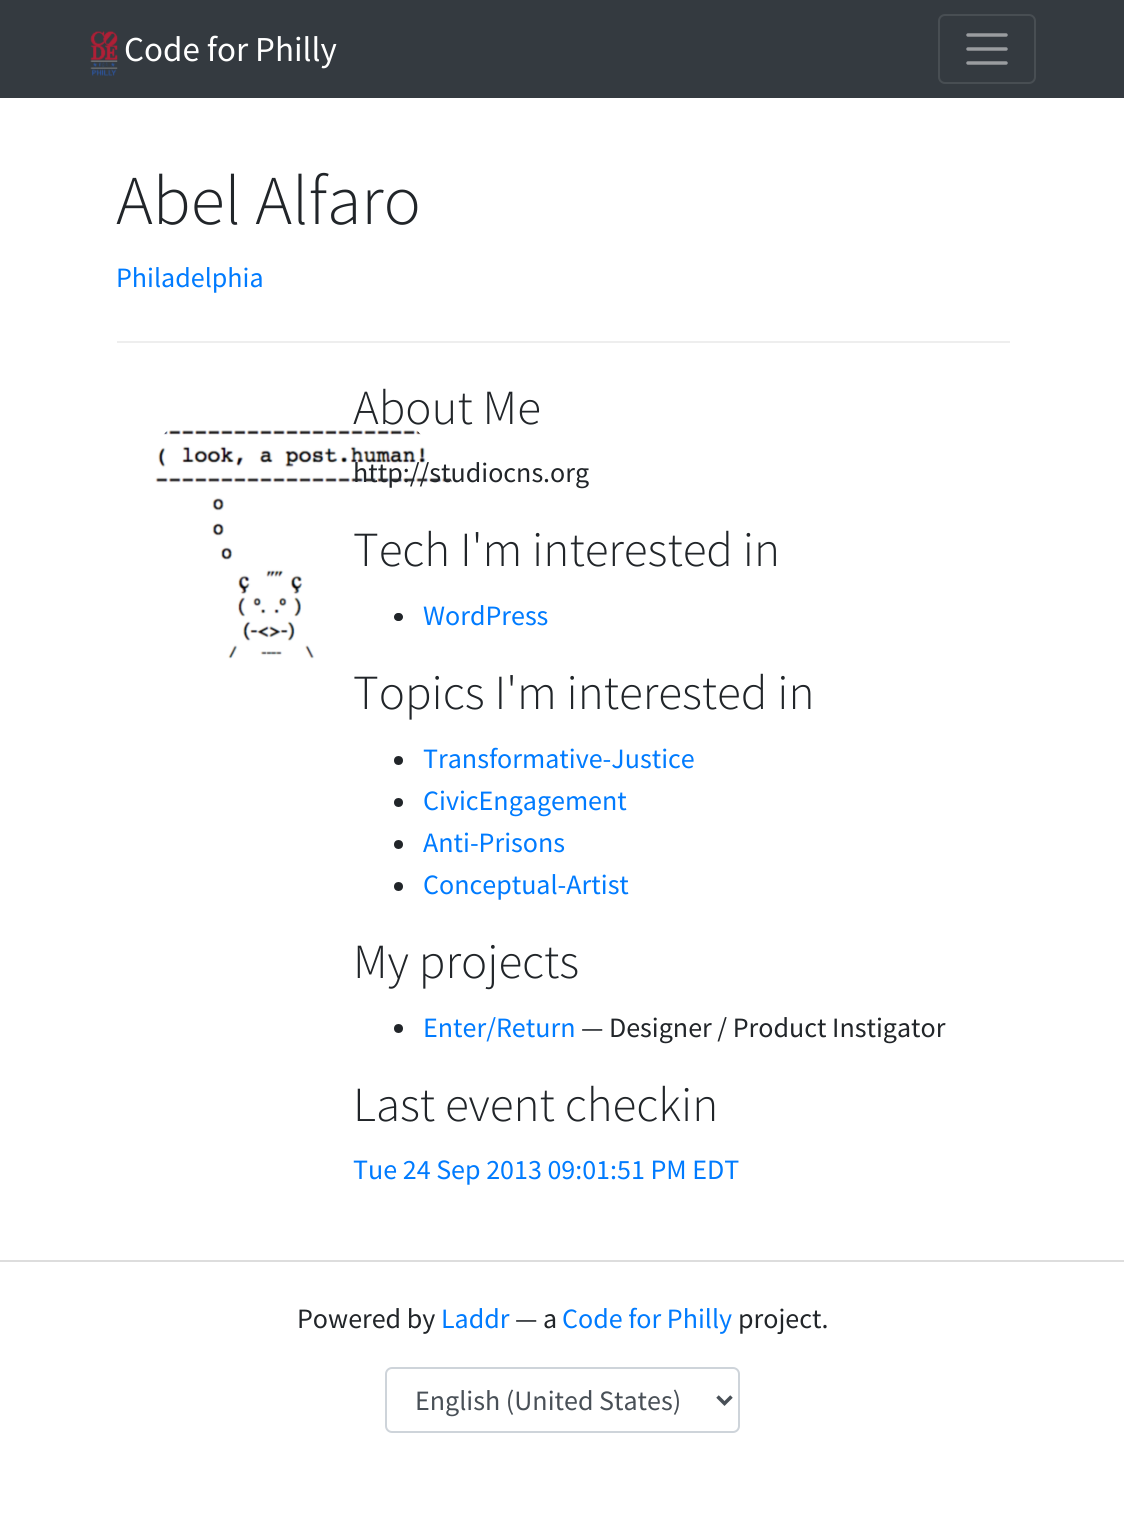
#include <cairo.h>
#include <math.h>
#include <stddef.h>


static void rgb(cairo_t *cr, int r, int g, int b)
{
	cairo_set_source_rgb(cr, r / 255.0, g / 255.0, b / 255.0);
}

static void face(cairo_t *cr, const char *family, double size, int italic, int bold)
{
	cairo_select_font_face(cr, family, italic ? CAIRO_FONT_SLANT_ITALIC : CAIRO_FONT_SLANT_NORMAL,
		bold ? CAIRO_FONT_WEIGHT_BOLD : CAIRO_FONT_WEIGHT_NORMAL);
	cairo_set_font_size(cr, size);
}

static void label(cairo_t *cr, double x, double y, const char *s)
{
	cairo_move_to(cr, x, y);
	cairo_show_text(cr, s);
}

static void rect(cairo_t *cr, double x, double y, double w, double h)
{
	cairo_rectangle(cr, x, y, w, h);
	cairo_fill(cr);
}

static void rrect(cairo_t *cr, double x, double y, double w, double h, double r)
{
	cairo_new_sub_path(cr);
	cairo_arc(cr, x + w - r, y + h - r, r, 0, M_PI / 2);
	cairo_arc(cr, x + r, y + h - r, r, M_PI / 2, M_PI);
	cairo_arc(cr, x + r, y + r, r, M_PI, 1.5 * M_PI);
	cairo_arc(cr, x + w - r, y + r, r, 1.5 * M_PI, 2 * M_PI);
	cairo_close_path(cr);
}

static void image(cairo_t *cr, const char *path, double x, double y, double w, double h)
{
	cairo_surface_t *image = cairo_image_surface_create_from_png(path);
	cairo_save(cr);
	cairo_set_source_surface(cr, image, x, y);
	cairo_rectangle(cr, x, y, w, h);
	cairo_fill(cr);
	cairo_restore(cr);
	cairo_surface_destroy(image);
}

static void draw(cairo_t *cr) {
	rgb(cr, 255, 255, 255);
	cairo_paint(cr);
	rgb(cr, 52, 58, 64);
	rect(cr, 0, 0, 1124, 98);
	image(cr, "image0.png", 90, 30, 28, 46);
	face(cr, "Source Sans Pro", 35, 0, 0);
	rgb(cr, 255, 255, 255);
	label(cr, 124, 61, "Code for Philly");
	rrect(cr, 939, 15, 96, 68, 6);
	rgb(cr, 72, 78, 83);
	cairo_stroke(cr);
	cairo_new_path(cr);
	cairo_move_to(cr, 968, 35);
	cairo_line_to(cr, 1006, 35);
	cairo_move_to(cr, 968, 49);
	cairo_line_to(cr, 1006, 49);
	cairo_move_to(cr, 968, 63);
	cairo_line_to(cr, 1006, 63);
	rgb(cr, 154, 157, 160);
	cairo_set_line_width(cr, 3.5);
	cairo_set_line_cap(cr, CAIRO_LINE_CAP_ROUND);
	cairo_stroke(cr);
	rgb(cr, 238, 238, 238);
	rect(cr, 117, 341, 893, 2);
	face(cr, "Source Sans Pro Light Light", 70, 0, 0);
	rgb(cr, 33, 37, 41);
	label(cr, 116, 224, "Abel Alfaro");
	face(cr, "Source Sans Pro", 28, 0, 0);
	rgb(cr, 0, 123, 255);
	label(cr, 116, 287, "Philadelphia");
	image(cr, "image1.png", 155, 430, 297, 229);
	face(cr, "Source Sans Pro Light Light", 49, 0, 0);
	rgb(cr, 33, 37, 41);
	label(cr, 353, 424, "About Me");
	face(cr, "Source Sans Pro", 28, 0, 0);
	label(cr, 353, 482, "http://studiocns.org");
	face(cr, "Source Sans Pro Light Light", 49, 0, 0);
	label(cr, 353, 566, "Tech I'm interested in");
	rrect(cr, 394, 613, 9, 8, 4);
	cairo_fill(cr);
	face(cr, "Source Sans Pro", 28, 0, 0);
	rgb(cr, 0, 123, 255);
	label(cr, 423, 625, "WordPress");
	face(cr, "Source Sans Pro Light Light", 49, 0, 0);
	rgb(cr, 33, 37, 41);
	label(cr, 353, 709, "Topics I'm interested in");
	cairo_new_path(cr);
	cairo_arc(cr, 398.5, 760.5, 4.5, 0, 2 * M_PI);
	cairo_fill(cr);
	face(cr, "Source Sans Pro", 28, 0, 0);
	rgb(cr, 0, 123, 255);
	label(cr, 423, 768, "Transformative-Justice");
	rgb(cr, 33, 37, 41);
	cairo_new_path(cr);
	cairo_arc(cr, 398.5, 802.5, 4.5, 0, 2 * M_PI);
	cairo_fill(cr);
	rgb(cr, 0, 123, 255);
	label(cr, 423, 810, "CivicEngagement");
	rgb(cr, 33, 37, 41);
	cairo_new_path(cr);
	cairo_arc(cr, 398.5, 844.5, 4.5, 0, 2 * M_PI);
	cairo_fill(cr);
	rgb(cr, 0, 123, 255);
	label(cr, 423, 852, "Anti-Prisons");
	rgb(cr, 33, 37, 41);
	cairo_new_path(cr);
	cairo_arc(cr, 398.5, 886.5, 4.5, 0, 2 * M_PI);
	cairo_fill(cr);
	rgb(cr, 0, 123, 255);
	label(cr, 423, 894, "Conceptual-Artist");
	face(cr, "Source Sans Pro Light Light", 49, 0, 0);
	rgb(cr, 33, 37, 41);
	label(cr, 353, 978, "My projects");
	cairo_new_path(cr);
	cairo_arc(cr, 398.5, 1028.5, 4.5, 0, 2 * M_PI);
	cairo_fill(cr);
	face(cr, "Source Sans Pro", 28, 0, 0);
	rgb(cr, 0, 123, 255);
	label(cr, 423, 1037, "Enter/Return");
	rgb(cr, 33, 37, 41);
	label(cr, 581, 1037, "— Designer / Product Instigator");
	face(cr, "Source Sans Pro Light Light", 49, 0, 0);
	label(cr, 353, 1121, "Last event checkin");
	face(cr, "Source Sans Pro", 28, 0, 0);
	rgb(cr, 0, 123, 255);
	label(cr, 353, 1179, "Tue 24 Sep 2013 09:01:51 PM EDT");
	rgb(cr, 221, 221, 221);
	rect(cr, 0, 1260, 1124, 2);
	rgb(cr, 33, 37, 41);
	label(cr, 297, 1328, "Powered by");
	rgb(cr, 0, 123, 255);
	label(cr, 441, 1328, "Laddr");
	rgb(cr, 33, 37, 41);
	label(cr, 515, 1328, "— a");
	rgb(cr, 0, 123, 255);
	label(cr, 562, 1328, "Code for Philly");
	rgb(cr, 33, 37, 41);
	label(cr, 738, 1328, "project.");
	rrect(cr, 386, 1368, 353, 64, 6);
	rgb(cr, 206, 212, 218);
	cairo_set_line_width(cr, 2);
	cairo_set_line_cap(cr, CAIRO_LINE_CAP_BUTT);
	cairo_stroke(cr);
	cairo_new_path(cr);
	cairo_move_to(cr, 717.5, 1396.5);
	cairo_line_to(cr, 724.5, 1403.5);
	cairo_line_to(cr, 731.5, 1396.5);
	rgb(cr, 73, 80, 87);
	cairo_set_line_width(cr, 3.5);
	cairo_stroke(cr);
	label(cr, 415, 1410, "English (United States)");
}

int main(void) {
	cairo_surface_t *surface = cairo_image_surface_create(CAIRO_FORMAT_RGB24, 1124, 1528);
	cairo_t *cr = cairo_create(surface);
	cairo_font_options_t *options = cairo_font_options_create();
	cairo_font_options_set_hint_metrics(options, CAIRO_HINT_METRICS_OFF);
	cairo_font_options_set_hint_style(options, CAIRO_HINT_STYLE_NONE);
	cairo_set_font_options(cr, options);
	cairo_set_miter_limit(cr, 4);
	draw(cr);
	cairo_surface_write_to_png(surface, "render.png");
	cairo_font_options_destroy(options);
	cairo_destroy(cr);
	cairo_surface_destroy(surface);
	return 0;
}
